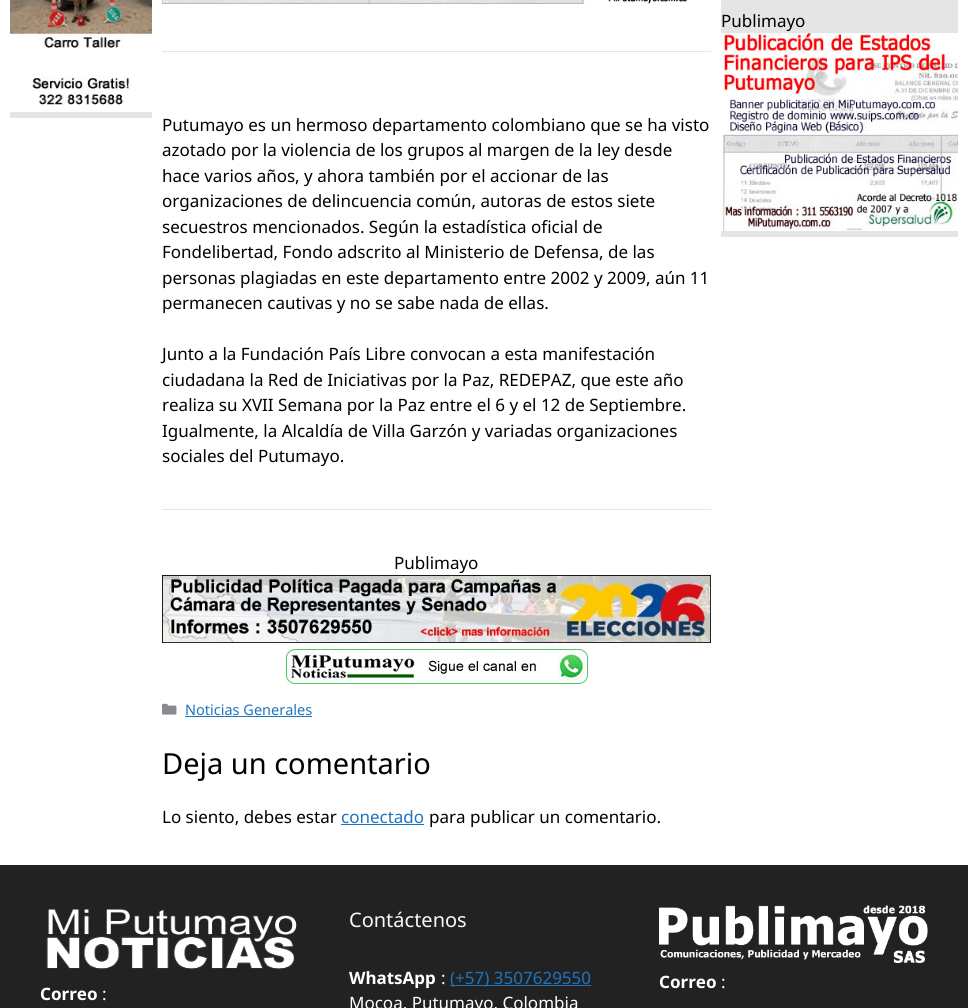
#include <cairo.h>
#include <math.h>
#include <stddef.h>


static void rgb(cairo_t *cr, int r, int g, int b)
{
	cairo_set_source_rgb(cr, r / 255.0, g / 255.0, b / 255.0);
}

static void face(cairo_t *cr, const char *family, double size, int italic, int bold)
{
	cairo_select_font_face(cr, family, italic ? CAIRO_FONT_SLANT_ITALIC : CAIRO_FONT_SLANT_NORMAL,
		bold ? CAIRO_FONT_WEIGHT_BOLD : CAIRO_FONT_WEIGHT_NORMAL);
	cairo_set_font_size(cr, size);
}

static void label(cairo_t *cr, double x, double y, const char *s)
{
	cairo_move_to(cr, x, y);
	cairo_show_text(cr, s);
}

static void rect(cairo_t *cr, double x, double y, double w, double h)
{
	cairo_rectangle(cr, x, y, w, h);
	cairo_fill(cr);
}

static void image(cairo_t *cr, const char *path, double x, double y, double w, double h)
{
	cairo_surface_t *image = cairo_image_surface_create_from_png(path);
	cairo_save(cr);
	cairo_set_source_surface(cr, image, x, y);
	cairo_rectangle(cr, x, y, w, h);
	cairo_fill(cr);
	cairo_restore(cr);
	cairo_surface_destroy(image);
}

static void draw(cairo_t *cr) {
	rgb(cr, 255, 255, 255);
	cairo_paint(cr);
	rgb(cr, 230, 229, 229);
	rect(cr, 10, 112, 142, 6);
	image(cr, "image0.png", 10, 0, 142, 112);
	rect(cr, 721, 0, 237, 237);
	face(cr, "Noto Sans", 17, 0, 0);
	rgb(cr, 0, 0, 0);
	label(cr, 721, 27, "Publimayo");
	image(cr, "image1.png", 721, 33, 237, 198);
	image(cr, "image2.png", 162, 0, 525, 4);
	rgb(cr, 230, 230, 230);
	rect(cr, 162, 51, 549, 1);
	rgb(cr, 0, 0, 0);
	label(cr, 162, 131, "Putumayo es un hermoso departamento colombiano que se ha visto");
	label(cr, 162, 156, "azotado por la violencia de los grupos al margen de la ley desde");
	label(cr, 162, 182, "hace varios años, y ahora también por el accionar de las");
	label(cr, 162, 207, "organizaciones de delincuencia común, autoras de estos siete");
	label(cr, 162, 233, "secuestros mencionados. Según la estadística oficial de");
	label(cr, 162, 258, "Fondelibertad, Fondo adscrito al Ministerio de Defensa, de las");
	label(cr, 162, 284, "personas plagiadas en este departamento entre 2002 y 2009, aún 11");
	label(cr, 162, 309, "permanecen cautivas y no se sabe nada de ellas.");
	label(cr, 162, 360, "Junto a la Fundación País Libre convocan a esta manifestación");
	label(cr, 162, 386, "ciudadana la Red de Iniciativas por la Paz, REDEPAZ, que este año");
	label(cr, 162, 411, "realiza su XVII Semana por la Paz entre el 6 y el 12 de Septiembre.");
	label(cr, 162, 437, "Igualmente, la Alcaldía de Villa Garzón y variadas organizaciones");
	label(cr, 162, 462, "sociales del Putumayo.");
	rgb(cr, 230, 230, 230);
	rect(cr, 162, 509, 549, 1);
	rgb(cr, 0, 0, 0);
	label(cr, 394, 569, "Publimayo");
	image(cr, "image3.png", 162, 575, 549, 68);
	image(cr, "image4.png", 286, 649, 302, 35);
	image(cr, "image5.png", 162, 703, 15, 12);
	face(cr, "Noto Sans", 14.5, 0, 0);
	rgb(cr, 30, 115, 190);
	label(cr, 185, 715, "Noticias Generales");
	rect(cr, 185, 716, 127, 1);
	face(cr, "Noto Sans", 29, 0, 0);
	rgb(cr, 0, 0, 0);
	label(cr, 162, 774, "Deja un comentario");
	face(cr, "Noto Sans", 17, 0, 0);
	label(cr, 162, 823, "Lo siento, debes estar");
	rgb(cr, 30, 115, 190);
	label(cr, 341, 823, "conectado");
	rect(cr, 341, 824, 83, 1);
	rgb(cr, 0, 0, 0);
	label(cr, 429, 823, "para publicar un comentario.");
	rgb(cr, 34, 34, 34);
	rect(cr, 0, 865, 968, 143);
	face(cr, "Noto Sans", 20, 0, 0);
	rgb(cr, 247, 248, 249);
	label(cr, 349, 927, "Contáctenos");
	face(cr, "Noto Sans", 17, 0, 1);
	rgb(cr, 255, 255, 255);
	label(cr, 349, 984, "WhatsApp");
	face(cr, "Noto Sans", 17, 0, 0);
	label(cr, 441, 984, ":");
	rgb(cr, 30, 115, 190);
	rect(cr, 450, 985, 141, 1);
	label(cr, 450, 984, "(+57) 3507629550");
	rgb(cr, 255, 255, 255);
	label(cr, 349, 1009, "Mocoa, Putumayo. Colombia");
	image(cr, "image6.png", 659, 905, 269, 58);
	face(cr, "Noto Sans", 17, 0, 1);
	label(cr, 659, 988, "Correo");
	face(cr, "Noto Sans", 17, 0, 0);
	label(cr, 721, 988, ":");
	image(cr, "image7.png", 46, 909, 251, 61);
	face(cr, "Noto Sans", 17, 0, 1);
	label(cr, 40, 1000, "Correo");
	face(cr, "Noto Sans", 17, 0, 0);
	label(cr, 102, 1000, ":");
}

int main(void) {
	cairo_surface_t *surface = cairo_image_surface_create(CAIRO_FORMAT_RGB24, 968, 1008);
	cairo_t *cr = cairo_create(surface);
	cairo_font_options_t *options = cairo_font_options_create();
	cairo_font_options_set_hint_metrics(options, CAIRO_HINT_METRICS_OFF);
	cairo_font_options_set_hint_style(options, CAIRO_HINT_STYLE_NONE);
	cairo_set_font_options(cr, options);
	cairo_set_miter_limit(cr, 4);
	draw(cr);
	cairo_surface_write_to_png(surface, "render.png");
	cairo_font_options_destroy(options);
	cairo_destroy(cr);
	cairo_surface_destroy(surface);
	return 0;
}
